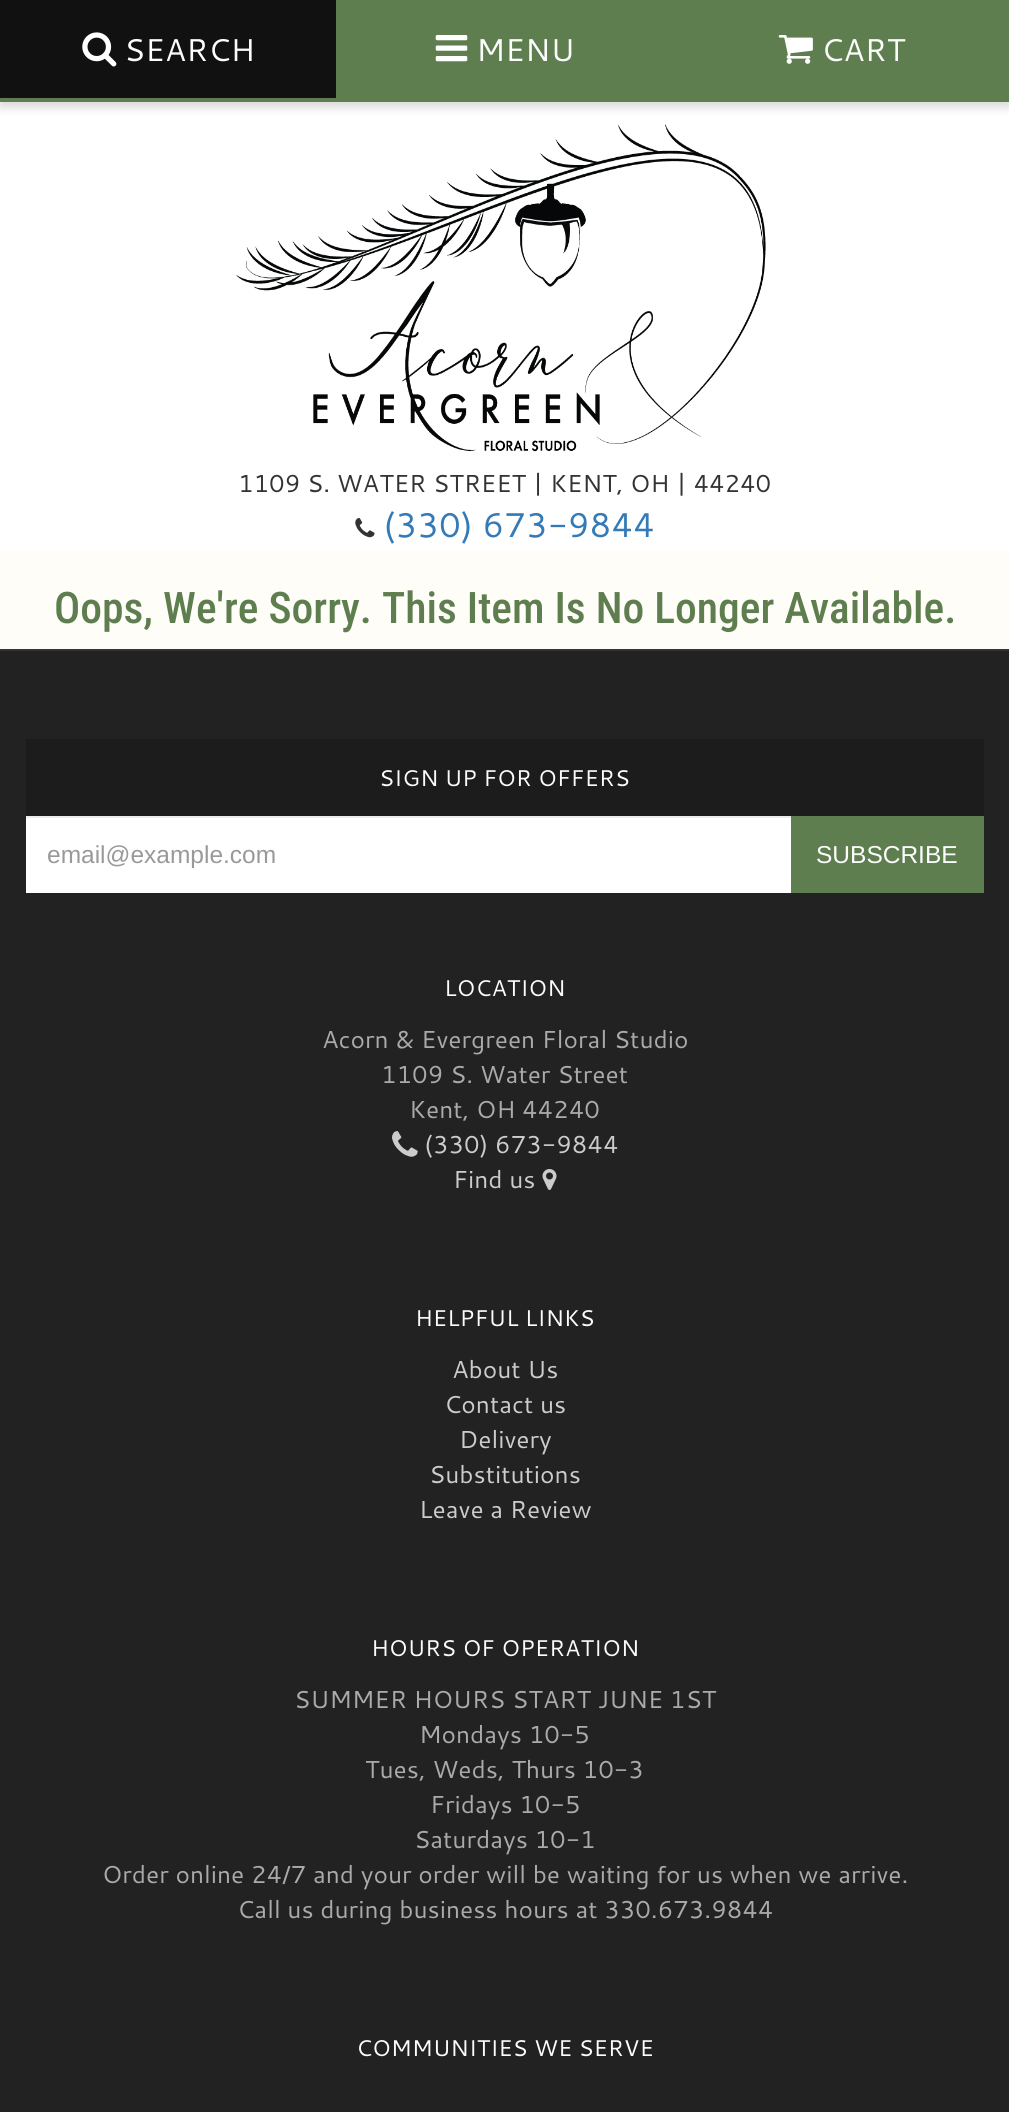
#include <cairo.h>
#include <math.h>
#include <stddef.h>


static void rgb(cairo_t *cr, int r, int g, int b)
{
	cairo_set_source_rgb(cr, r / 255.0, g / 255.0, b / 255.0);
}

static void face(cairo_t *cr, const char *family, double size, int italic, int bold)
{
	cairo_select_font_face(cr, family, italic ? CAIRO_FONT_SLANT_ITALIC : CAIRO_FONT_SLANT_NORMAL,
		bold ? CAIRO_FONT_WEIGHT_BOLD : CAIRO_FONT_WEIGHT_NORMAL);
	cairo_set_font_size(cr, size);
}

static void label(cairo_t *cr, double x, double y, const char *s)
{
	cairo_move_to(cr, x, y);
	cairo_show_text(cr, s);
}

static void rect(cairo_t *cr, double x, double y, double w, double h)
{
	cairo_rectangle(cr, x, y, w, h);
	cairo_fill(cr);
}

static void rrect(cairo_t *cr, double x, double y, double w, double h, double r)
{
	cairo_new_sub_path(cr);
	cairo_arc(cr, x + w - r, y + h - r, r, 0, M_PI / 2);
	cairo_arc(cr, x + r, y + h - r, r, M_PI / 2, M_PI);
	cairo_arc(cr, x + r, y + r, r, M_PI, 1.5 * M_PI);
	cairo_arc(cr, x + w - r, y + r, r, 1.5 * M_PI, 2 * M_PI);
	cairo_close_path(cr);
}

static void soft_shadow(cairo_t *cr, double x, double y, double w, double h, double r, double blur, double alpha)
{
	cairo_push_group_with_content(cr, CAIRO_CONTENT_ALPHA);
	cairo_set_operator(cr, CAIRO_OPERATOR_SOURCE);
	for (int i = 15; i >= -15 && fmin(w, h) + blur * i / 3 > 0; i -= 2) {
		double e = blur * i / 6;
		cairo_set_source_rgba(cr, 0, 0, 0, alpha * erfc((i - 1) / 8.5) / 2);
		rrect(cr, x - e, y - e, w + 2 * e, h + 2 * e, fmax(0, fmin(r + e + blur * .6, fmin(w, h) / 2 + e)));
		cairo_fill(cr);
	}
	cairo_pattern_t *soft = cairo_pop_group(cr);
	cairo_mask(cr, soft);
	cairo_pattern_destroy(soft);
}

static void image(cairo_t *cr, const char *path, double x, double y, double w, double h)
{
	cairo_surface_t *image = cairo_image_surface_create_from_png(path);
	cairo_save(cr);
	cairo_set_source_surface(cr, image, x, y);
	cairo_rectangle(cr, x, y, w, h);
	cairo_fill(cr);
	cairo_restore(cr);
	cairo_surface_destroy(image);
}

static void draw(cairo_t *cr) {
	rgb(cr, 255, 253, 248);
	cairo_paint(cr);
	rgb(cr, 255, 255, 255);
	rect(cr, 0, 102, 1009, 448);
	rgb(cr, 0, 0, 0);
	soft_shadow(cr, 0, 5, 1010, 102, 0, 5, 0.16);
	rgb(cr, 95, 126, 79);
	rect(cr, 0, 0, 1009, 102);
	rgb(cr, 17, 17, 17);
	rect(cr, 0, 0, 336, 98);
	image(cr, "image0.png", 82, 32, 35, 35);
	face(cr, "Cantarell", 31.5, 0, 0);
	rgb(cr, 252, 252, 252);
	label(cr, 124, 61, "SEARCH");
	image(cr, "image1.png", 435, 35, 33, 27);
	label(cr, 476, 61, "MENU");
	image(cr, "image2.png", 778, 35, 35, 29);
	label(cr, 821, 61, "CART");
	image(cr, "image3.png", 236, 124, 530, 328);
	face(cr, "Cantarell", 24.5, 0, 0);
	rgb(cr, 51, 51, 51);
	label(cr, 238, 492, "1109 S. WATER STREET | KENT, OH | 44240");
	image(cr, "image4.png", 355, 518, 20, 20);
	face(cr, "Cantarell", 34.25, 0, 0);
	rgb(cr, 51, 122, 183);
	label(cr, 383, 537, "(330) 673-9844");
	face(cr, "Roboto Condensed Medium", 43.55, 0, 0);
	rgb(cr, 95, 126, 79);
	label(cr, 54, 623, "Oops, We're Sorry. This Item Is No Longer Available.");
	rgb(cr, 34, 34, 34);
	rect(cr, 0, 651, 1009, 1461);
	rgb(cr, 51, 51, 51);
	rect(cr, 0, 649, 1009, 2);
	rgb(cr, 28, 28, 28);
	rect(cr, 26, 739, 958, 77);
	face(cr, "Cantarell", 22.75, 0, 0);
	rgb(cr, 252, 252, 252);
	label(cr, 379, 786, "SIGN UP FOR OFFERS");
	rgb(cr, 255, 255, 255);
	rect(cr, 26, 818, 765, 75);
	rgb(cr, 236, 236, 236);
	rect(cr, 26, 816, 765, 2);
	face(cr, "Liberation Sans", 24.5, 0, 0);
	rgb(cr, 153, 153, 153);
	label(cr, 47, 863, "email@example.com");
	rgb(cr, 95, 126, 79);
	rect(cr, 791, 816, 193, 77);
	rgb(cr, 252, 252, 252);
	label(cr, 816, 863, "SUBSCRIBE");
	face(cr, "Cantarell", 22.75, 0, 0);
	label(cr, 444, 996, "LOCATION");
	face(cr, "Cantarell", 24.5, 0, 0);
	rgb(cr, 170, 170, 170);
	label(cr, 322, 1048, "Acorn & Evergreen Floral Studio");
	label(cr, 381, 1083, "1109 S. Water Street");
	label(cr, 409, 1118, "Kent, OH 44240");
	image(cr, "image5.png", 392, 1131, 26, 26);
	rgb(cr, 204, 204, 204);
	label(cr, 424, 1153, "(330) 673-9844");
	label(cr, 453, 1188, "Find us");
	image(cr, "image6.png", 542, 1169, 15, 21);
	face(cr, "Cantarell", 22.75, 0, 0);
	rgb(cr, 252, 252, 252);
	label(cr, 415, 1326, "HELPFUL LINKS");
	face(cr, "Cantarell", 24.5, 0, 0);
	rgb(cr, 204, 204, 204);
	label(cr, 452, 1378, "About Us");
	label(cr, 444, 1413, "Contact us");
	label(cr, 459, 1448, "Delivery");
	label(cr, 429, 1483, "Substitutions");
	label(cr, 419, 1518, "Leave a Review");
	face(cr, "Cantarell", 22.75, 0, 0);
	rgb(cr, 252, 252, 252);
	label(cr, 371, 1656, "HOURS OF OPERATION");
	face(cr, "Cantarell", 24.5, 0, 0);
	rgb(cr, 170, 170, 170);
	label(cr, 294, 1708, "SUMMER HOURS START JUNE 1ST");
	label(cr, 419, 1743, "Mondays 10-5");
	label(cr, 365, 1778, "Tues, Weds, Thurs 10-3");
	label(cr, 430, 1813, "Fridays 10-5");
	label(cr, 414, 1848, "Saturdays 10-1");
	label(cr, 102, 1883, "Order online 24/7 and your order will be waiting for us when we arrive.");
	label(cr, 237, 1918, "Call us during business hours at 330.673.9844");
	face(cr, "Cantarell", 22.75, 0, 0);
	rgb(cr, 252, 252, 252);
	label(cr, 356, 2056, "COMMUNITIES WE SERVE");
}

int main(void) {
	cairo_surface_t *surface = cairo_image_surface_create(CAIRO_FORMAT_RGB24, 1009, 2112);
	cairo_t *cr = cairo_create(surface);
	cairo_font_options_t *options = cairo_font_options_create();
	cairo_font_options_set_hint_metrics(options, CAIRO_HINT_METRICS_OFF);
	cairo_font_options_set_hint_style(options, CAIRO_HINT_STYLE_NONE);
	cairo_set_font_options(cr, options);
	cairo_set_miter_limit(cr, 4);
	draw(cr);
	cairo_surface_write_to_png(surface, "render.png");
	cairo_font_options_destroy(options);
	cairo_destroy(cr);
	cairo_surface_destroy(surface);
	return 0;
}
